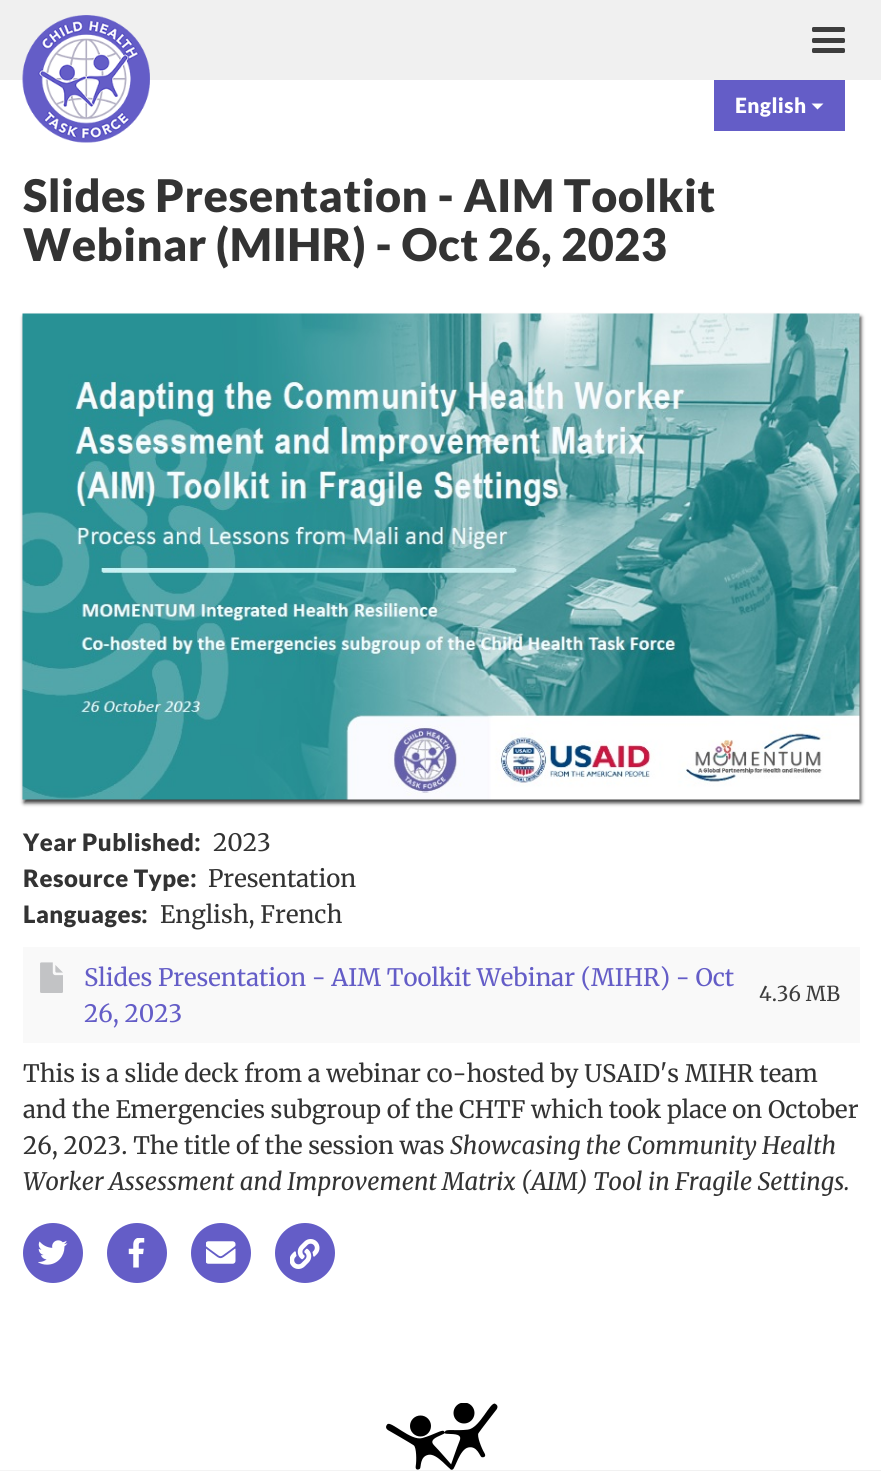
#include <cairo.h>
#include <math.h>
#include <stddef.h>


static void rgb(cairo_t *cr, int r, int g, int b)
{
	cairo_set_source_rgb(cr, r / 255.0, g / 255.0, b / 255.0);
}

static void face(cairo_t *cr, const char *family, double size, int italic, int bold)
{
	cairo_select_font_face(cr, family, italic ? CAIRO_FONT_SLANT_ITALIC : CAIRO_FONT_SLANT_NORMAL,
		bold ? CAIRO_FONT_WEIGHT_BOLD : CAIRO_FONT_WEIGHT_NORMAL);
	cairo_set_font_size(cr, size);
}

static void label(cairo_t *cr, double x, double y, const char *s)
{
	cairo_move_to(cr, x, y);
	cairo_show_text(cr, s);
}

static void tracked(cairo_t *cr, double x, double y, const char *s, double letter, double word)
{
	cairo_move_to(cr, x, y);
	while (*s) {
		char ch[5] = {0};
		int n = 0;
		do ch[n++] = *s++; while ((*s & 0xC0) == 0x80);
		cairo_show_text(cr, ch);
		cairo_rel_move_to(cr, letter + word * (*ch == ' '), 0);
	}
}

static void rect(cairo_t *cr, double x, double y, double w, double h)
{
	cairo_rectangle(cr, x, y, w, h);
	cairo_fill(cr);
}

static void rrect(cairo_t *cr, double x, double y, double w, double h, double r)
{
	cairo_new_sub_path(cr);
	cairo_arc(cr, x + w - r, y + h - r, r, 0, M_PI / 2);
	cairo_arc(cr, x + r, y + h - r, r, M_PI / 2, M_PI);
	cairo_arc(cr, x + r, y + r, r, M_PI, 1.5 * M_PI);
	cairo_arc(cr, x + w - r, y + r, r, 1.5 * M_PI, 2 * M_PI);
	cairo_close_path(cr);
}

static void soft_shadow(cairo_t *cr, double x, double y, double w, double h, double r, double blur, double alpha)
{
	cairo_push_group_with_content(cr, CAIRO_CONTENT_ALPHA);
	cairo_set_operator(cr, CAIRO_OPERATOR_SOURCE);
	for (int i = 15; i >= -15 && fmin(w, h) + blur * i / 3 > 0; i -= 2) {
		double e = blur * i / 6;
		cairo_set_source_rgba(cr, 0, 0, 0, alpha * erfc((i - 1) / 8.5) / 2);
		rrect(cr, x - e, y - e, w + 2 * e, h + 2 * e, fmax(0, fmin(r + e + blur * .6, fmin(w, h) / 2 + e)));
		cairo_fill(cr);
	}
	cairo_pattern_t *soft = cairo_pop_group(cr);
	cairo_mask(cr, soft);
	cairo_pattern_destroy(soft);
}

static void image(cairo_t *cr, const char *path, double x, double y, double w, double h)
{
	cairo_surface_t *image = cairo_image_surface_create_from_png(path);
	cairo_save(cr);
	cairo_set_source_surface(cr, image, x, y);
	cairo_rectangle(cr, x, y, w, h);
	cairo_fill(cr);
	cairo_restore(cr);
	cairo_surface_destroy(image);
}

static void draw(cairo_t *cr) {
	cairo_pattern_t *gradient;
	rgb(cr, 255, 255, 255);
	cairo_paint(cr);
	rgb(cr, 240, 240, 240);
	rect(cr, 0, 0, 881, 80);
	image(cr, "image0.png", 22, 15, 128, 128);
	rgb(cr, 61, 61, 61);
	rrect(cr, 812, 27, 33, 5, 1.5);
	cairo_fill(cr);
	rrect(cr, 812, 38, 33, 5, 1.5);
	cairo_fill(cr);
	rrect(cr, 812, 48, 33, 5, 1.5);
	cairo_fill(cr);
	rgb(cr, 100, 93, 199);
	rect(cr, 714, 80, 131, 51);
	face(cr, "Lato Black", 21, 0, 0);
	rgb(cr, 255, 255, 255);
	tracked(cr, 735, 113, "English", 0.45, 0);
	cairo_new_path(cr);
	cairo_move_to(cr, 811.5, 103.5);
	cairo_line_to(cr, 823.5, 103.5);
	cairo_line_to(cr, 817.5, 109.5);
	cairo_close_path(cr);
	cairo_fill(cr);
	face(cr, "Lato Black", 45, 0, 0);
	rgb(cr, 51, 51, 51);
	tracked(cr, 23, 212, "Slides Presentation - AIM Toolkit", 0.45, 0);
	tracked(cr, 23, 261, "Webinar (MIHR) - Oct 26, 2023", 0.45, 0);
	rgb(cr, 61, 61, 61);
	soft_shadow(cr, 24, 317, 837, 486, 0, 2, 1);
	image(cr, "image1.png", 22, 313, 838, 487);
	face(cr, "Lato Black", 24, 0, 0);
	rgb(cr, 51, 51, 51);
	tracked(cr, 23, 851, "Year Published", 0.45, 0);
	face(cr, "Merriweather", 24, 0, 1);
	label(cr, 194, 851, ":");
	face(cr, "Merriweather", 24, 0, 0);
	label(cr, 213, 851, "2023");
	face(cr, "Lato Black", 24, 0, 0);
	tracked(cr, 23, 887, "Resource Type", 0.45, 0);
	face(cr, "Merriweather", 24, 0, 1);
	label(cr, 190, 887, ":");
	face(cr, "Merriweather", 24, 0, 0);
	label(cr, 208, 887, "Presentation");
	face(cr, "Lato Black", 24, 0, 0);
	tracked(cr, 23, 923, "Languages", 0.45, 0);
	face(cr, "Merriweather", 24, 0, 1);
	label(cr, 141, 923, ":");
	face(cr, "Merriweather", 24, 0, 0);
	label(cr, 160, 923, "English, French");
	rgb(cr, 249, 249, 249);
	rect(cr, 23, 947, 837, 96);
	image(cr, "image2.png", 40, 962, 23, 31);
	rgb(cr, 100, 93, 199);
	label(cr, 84, 986, "Slides Presentation - AIM Toolkit Webinar (MIHR) - Oct");
	label(cr, 84, 1022, "26, 2023");
	face(cr, "Merriweather", 20.5, 0, 0);
	rgb(cr, 61, 61, 61);
	label(cr, 759, 1001, "4.36 MB");
	face(cr, "Merriweather", 24, 0, 0);
	rgb(cr, 51, 51, 51);
	label(cr, 23, 1082, "This is a slide deck from a webinar co-hosted by USAID's MIHR team");
	label(cr, 23, 1118, "and the Emergencies subgroup of the CHTF which took place on October");
	label(cr, 23, 1154, "26, 2023. The title of the session was");
	face(cr, "Merriweather", 24, 1, 0);
	label(cr, 450, 1154, "Showcasing the Community Health");
	label(cr, 23, 1190, "Worker Assessment and Improvement Matrix (AIM) Tool in Fragile Settings.");
	rgb(cr, 100, 93, 199);
	cairo_new_path(cr);
	cairo_arc(cr, 53, 1253, 30, 0, 2 * M_PI);
	cairo_fill(cr);
	image(cr, "image3.png", 38, 1240, 30, 25);
	cairo_arc(cr, 137, 1253, 30, 0, 2 * M_PI);
	cairo_fill(cr);
	image(cr, "image4.png", 128, 1238, 17, 30);
	cairo_arc(cr, 221, 1253, 30, 0, 2 * M_PI);
	cairo_fill(cr);
	image(cr, "image5.png", 206, 1241, 30, 23);
	cairo_arc(cr, 305, 1253, 30, 0, 2 * M_PI);
	cairo_fill(cr);
	image(cr, "image6.png", 290, 1239, 30, 30);
	image(cr, "image7.png", 386, 1403, 112, 67);
	gradient = cairo_pattern_create_linear(533, 1351, 349, 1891);
	cairo_pattern_add_color_stop_rgba(gradient, 0, 0.941, 0.941, 0.941, 1);
	cairo_pattern_add_color_stop_rgba(gradient, 1, 0.976, 0.976, 0.976, 1);
	cairo_set_source(cr, gradient);
	cairo_pattern_destroy(gradient);
	rect(cr, 0, 1470, 881, 1);
}

int main(void) {
	cairo_surface_t *surface = cairo_image_surface_create(CAIRO_FORMAT_RGB24, 881, 1471);
	cairo_t *cr = cairo_create(surface);
	cairo_font_options_t *options = cairo_font_options_create();
	cairo_font_options_set_hint_metrics(options, CAIRO_HINT_METRICS_OFF);
	cairo_font_options_set_hint_style(options, CAIRO_HINT_STYLE_NONE);
	cairo_set_font_options(cr, options);
	cairo_set_miter_limit(cr, 4);
	draw(cr);
	cairo_surface_write_to_png(surface, "render.png");
	cairo_font_options_destroy(options);
	cairo_destroy(cr);
	cairo_surface_destroy(surface);
	return 0;
}
